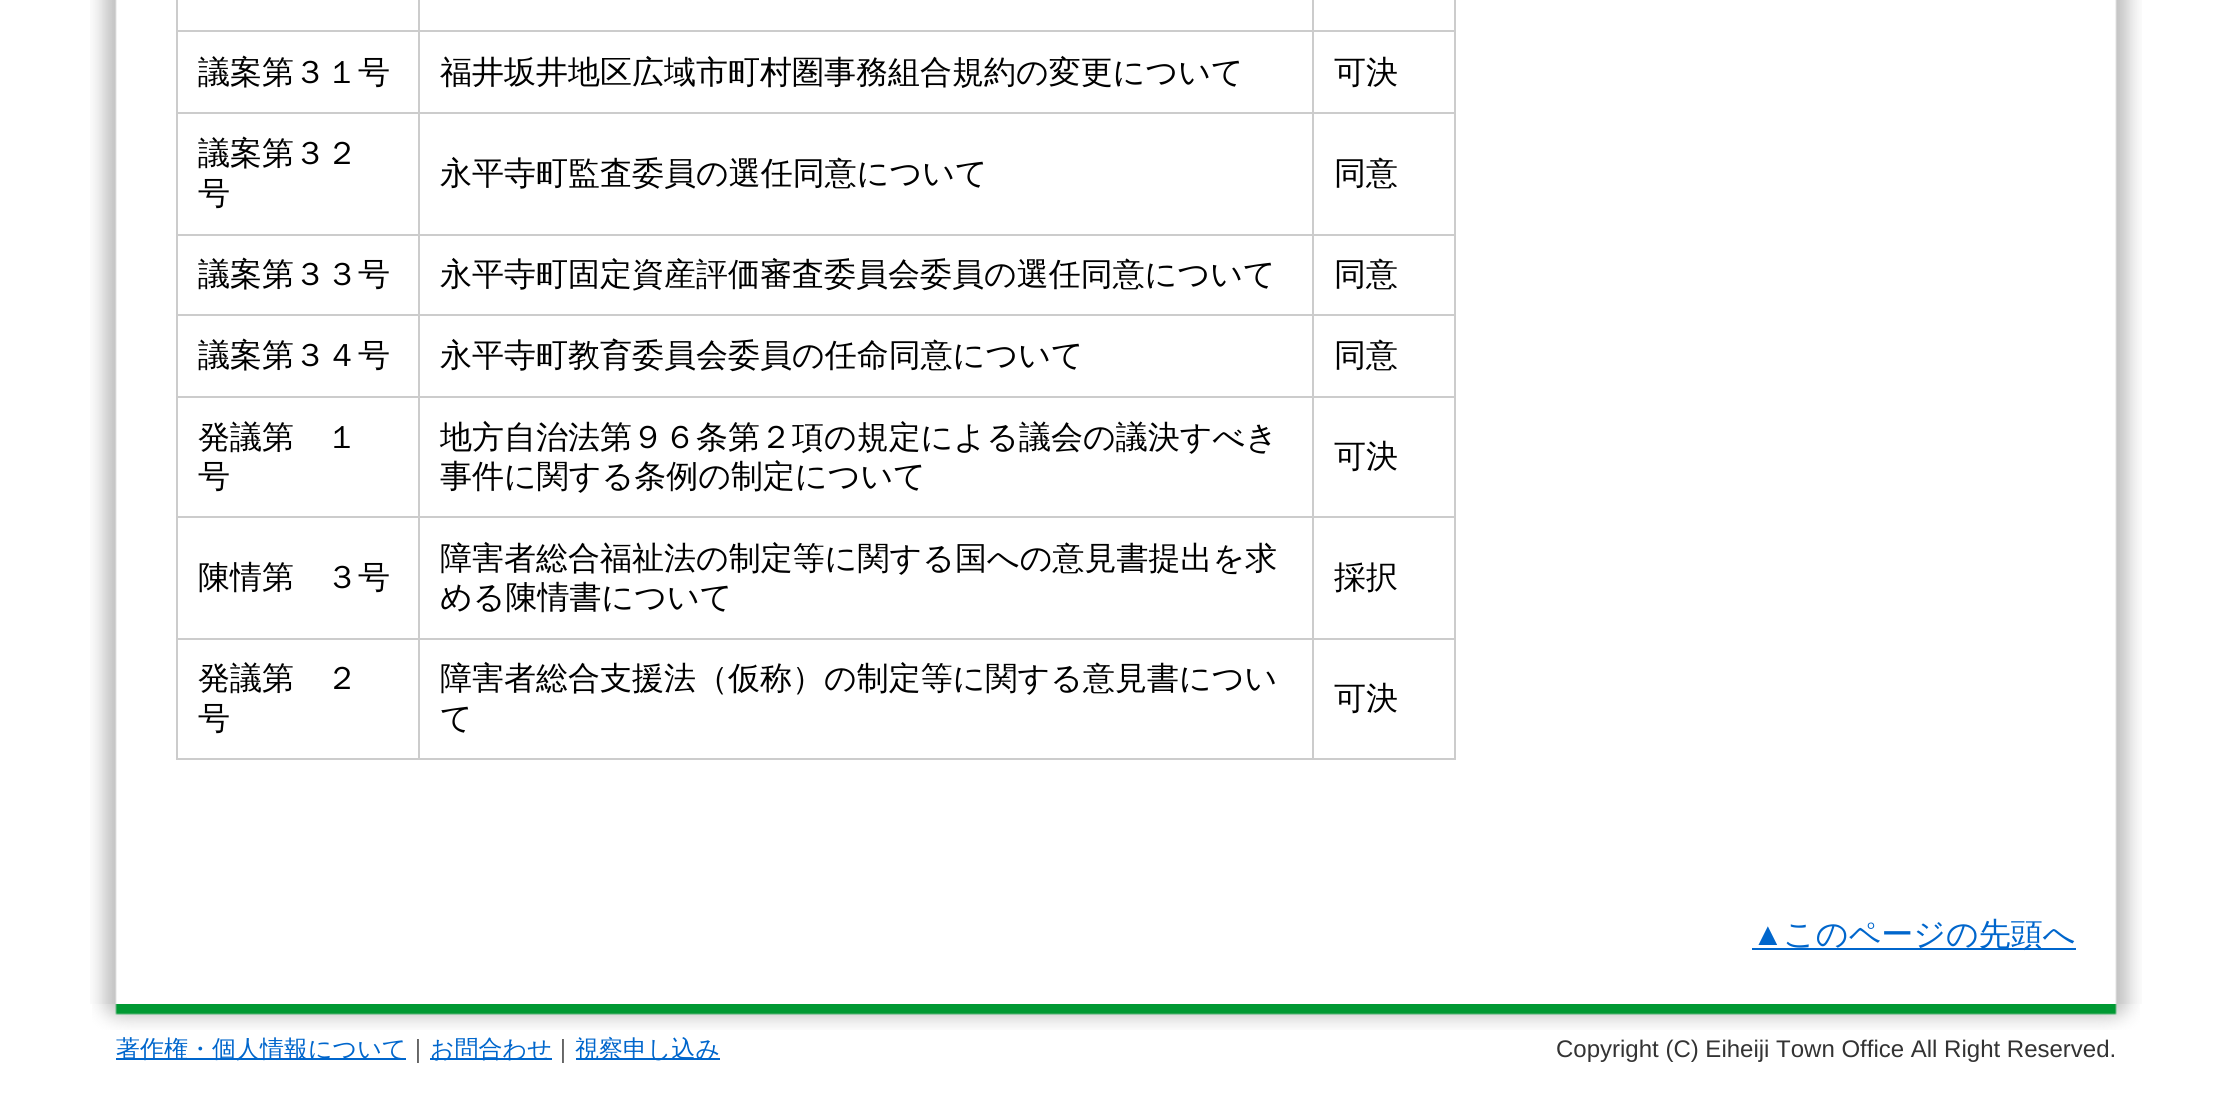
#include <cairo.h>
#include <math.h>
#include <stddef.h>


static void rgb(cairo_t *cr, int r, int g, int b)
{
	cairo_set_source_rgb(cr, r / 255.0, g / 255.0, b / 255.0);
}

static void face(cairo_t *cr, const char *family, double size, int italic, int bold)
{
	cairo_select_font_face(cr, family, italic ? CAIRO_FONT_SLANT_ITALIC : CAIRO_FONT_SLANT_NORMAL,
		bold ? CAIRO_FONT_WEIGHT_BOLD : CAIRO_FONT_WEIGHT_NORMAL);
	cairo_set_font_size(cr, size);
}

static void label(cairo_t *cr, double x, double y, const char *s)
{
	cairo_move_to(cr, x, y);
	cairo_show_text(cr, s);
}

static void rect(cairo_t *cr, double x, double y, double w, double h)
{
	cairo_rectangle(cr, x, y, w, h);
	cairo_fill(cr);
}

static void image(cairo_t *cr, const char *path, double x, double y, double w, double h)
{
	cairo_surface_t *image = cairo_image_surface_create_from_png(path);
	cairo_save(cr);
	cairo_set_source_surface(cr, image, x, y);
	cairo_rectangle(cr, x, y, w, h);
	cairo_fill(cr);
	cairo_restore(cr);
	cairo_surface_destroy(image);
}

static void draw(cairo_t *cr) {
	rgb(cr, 255, 255, 255);
	cairo_paint(cr);
	image(cr, "image0.png", 90, 0, 2052, 1004);
	rgb(cr, 204, 204, 204);
	rect(cr, 1312, 30, 144, 2);
	rect(cr, 1312, 112, 144, 2);
	rect(cr, 1312, 234, 144, 2);
	rect(cr, 1312, 314, 144, 2);
	rect(cr, 1312, 396, 144, 2);
	rect(cr, 1312, 516, 144, 2);
	rect(cr, 1312, 638, 144, 2);
	rect(cr, 1454, 638, 2, 122);
	rect(cr, 1312, 758, 144, 2);
	rect(cr, 1312, 638, 2, 122);
	rect(cr, 418, 638, 896, 2);
	rect(cr, 1312, 516, 2, 124);
	rect(cr, 418, 516, 896, 2);
	rect(cr, 1312, 396, 2, 122);
	rect(cr, 418, 396, 896, 2);
	rect(cr, 1312, 314, 2, 84);
	rect(cr, 418, 314, 896, 2);
	rect(cr, 1312, 234, 2, 82);
	rect(cr, 418, 234, 896, 2);
	rect(cr, 1312, 112, 2, 124);
	rect(cr, 418, 112, 896, 2);
	rect(cr, 1312, 30, 2, 84);
	rect(cr, 418, 30, 896, 2);
	rect(cr, 418, 758, 896, 2);
	rect(cr, 418, 638, 2, 122);
	rect(cr, 176, 638, 244, 2);
	rect(cr, 418, 516, 2, 124);
	rect(cr, 176, 516, 244, 2);
	rect(cr, 418, 396, 2, 122);
	rect(cr, 176, 396, 244, 2);
	rect(cr, 418, 314, 2, 84);
	rect(cr, 176, 314, 244, 2);
	rect(cr, 418, 234, 2, 82);
	rect(cr, 176, 234, 244, 2);
	rect(cr, 418, 112, 2, 124);
	rect(cr, 176, 112, 244, 2);
	rect(cr, 418, 30, 2, 84);
	rect(cr, 176, 30, 244, 2);
	rect(cr, 418, 0, 2, 32);
	rect(cr, 1312, 0, 2, 32);
	rect(cr, 176, 758, 244, 2);
	rect(cr, 176, 638, 2, 122);
	rect(cr, 176, 516, 2, 124);
	rect(cr, 176, 396, 2, 122);
	rect(cr, 176, 314, 2, 84);
	rect(cr, 176, 234, 2, 82);
	rect(cr, 176, 112, 2, 124);
	rect(cr, 176, 0, 2, 114);
	face(cr, "WenQuanYi Zen Hei Medium", 32, 0, 0);
	rgb(cr, 0, 0, 0);
	label(cr, 198, 83, "議案第３１号");
	label(cr, 440, 83, "福井坂井地区広域市町村圏事務組合規約の変更について");
	rgb(cr, 204, 204, 204);
	rect(cr, 1454, 516, 2, 124);
	rect(cr, 1454, 396, 2, 122);
	rect(cr, 1454, 314, 2, 84);
	rect(cr, 1454, 234, 2, 82);
	rect(cr, 1454, 112, 2, 124);
	rect(cr, 1454, 0, 2, 114);
	rgb(cr, 0, 0, 0);
	label(cr, 1334, 83, "可決");
	label(cr, 198, 164, "議案第３２");
	label(cr, 198, 204, "号");
	label(cr, 440, 184, "永平寺町監査委員の選任同意について");
	label(cr, 1334, 184, "同意");
	label(cr, 198, 285, "議案第３３号");
	label(cr, 440, 285, "永平寺町固定資産評価審査委員会委員の選任同意について");
	label(cr, 1334, 285, "同意");
	label(cr, 198, 366, "議案第３４号");
	label(cr, 440, 366, "永平寺町教育委員会委員の任命同意について");
	label(cr, 1334, 366, "同意");
	label(cr, 198, 448, "発議第　１");
	label(cr, 198, 487, "号");
	label(cr, 440, 448, "地方自治法第９６条第２項の規定による議会の議決すべき");
	label(cr, 440, 487, "事件に関する条例の制定について");
	label(cr, 1334, 467, "可決");
	label(cr, 198, 588, "陳情第　３号");
	label(cr, 440, 569, "障害者総合福祉法の制定等に関する国への意見書提出を求");
	label(cr, 440, 608, "める陳情書について");
	label(cr, 1334, 588, "採択");
	label(cr, 198, 689, "発議第　２");
	label(cr, 198, 729, "号");
	label(cr, 440, 689, "障害者総合支援法（仮称）の制定等に関する意見書につい");
	label(cr, 440, 729, "て");
	label(cr, 1334, 709, "可決");
	face(cr, "Liberation Sans", 32, 0, 0);
	rgb(cr, 0, 102, 204);
	label(cr, 1752, 945, "▲");
	rect(cr, 1752, 948, 324, 2);
	face(cr, "WenQuanYi Zen Hei Medium", 32, 0, 0);
	label(cr, 1783, 945, "このページの先頭へ");
	image(cr, "image1.png", 92, 1004, 2048, 26);
	rect(cr, 116, 1058, 290, 2);
	face(cr, "WenQuanYi Zen Hei Medium", 24, 0, 0);
	label(cr, 116, 1057, "著作権・個人情報について");
	rgb(cr, 51, 51, 51);
	label(cr, 406, 1057, "｜");
	rgb(cr, 0, 102, 204);
	rect(cr, 430, 1058, 122, 2);
	label(cr, 430, 1057, "お問合わせ");
	rgb(cr, 51, 51, 51);
	label(cr, 551, 1057, "｜");
	rgb(cr, 0, 102, 204);
	rect(cr, 576, 1058, 144, 2);
	label(cr, 575, 1057, "視察申し込み");
	face(cr, "Liberation Sans", 24, 0, 0);
	rgb(cr, 51, 51, 51);
	label(cr, 1556, 1057, "Copyright (C) Eiheiji Town Office All Right Reserved.");
}

int main(void) {
	cairo_surface_t *surface = cairo_image_surface_create(CAIRO_FORMAT_RGB24, 2232, 1093);
	cairo_t *cr = cairo_create(surface);
	cairo_font_options_t *options = cairo_font_options_create();
	cairo_font_options_set_hint_metrics(options, CAIRO_HINT_METRICS_OFF);
	cairo_font_options_set_hint_style(options, CAIRO_HINT_STYLE_NONE);
	cairo_set_font_options(cr, options);
	cairo_set_miter_limit(cr, 4);
	draw(cr);
	cairo_surface_write_to_png(surface, "render.png");
	cairo_font_options_destroy(options);
	cairo_destroy(cr);
	cairo_surface_destroy(surface);
	return 0;
}
